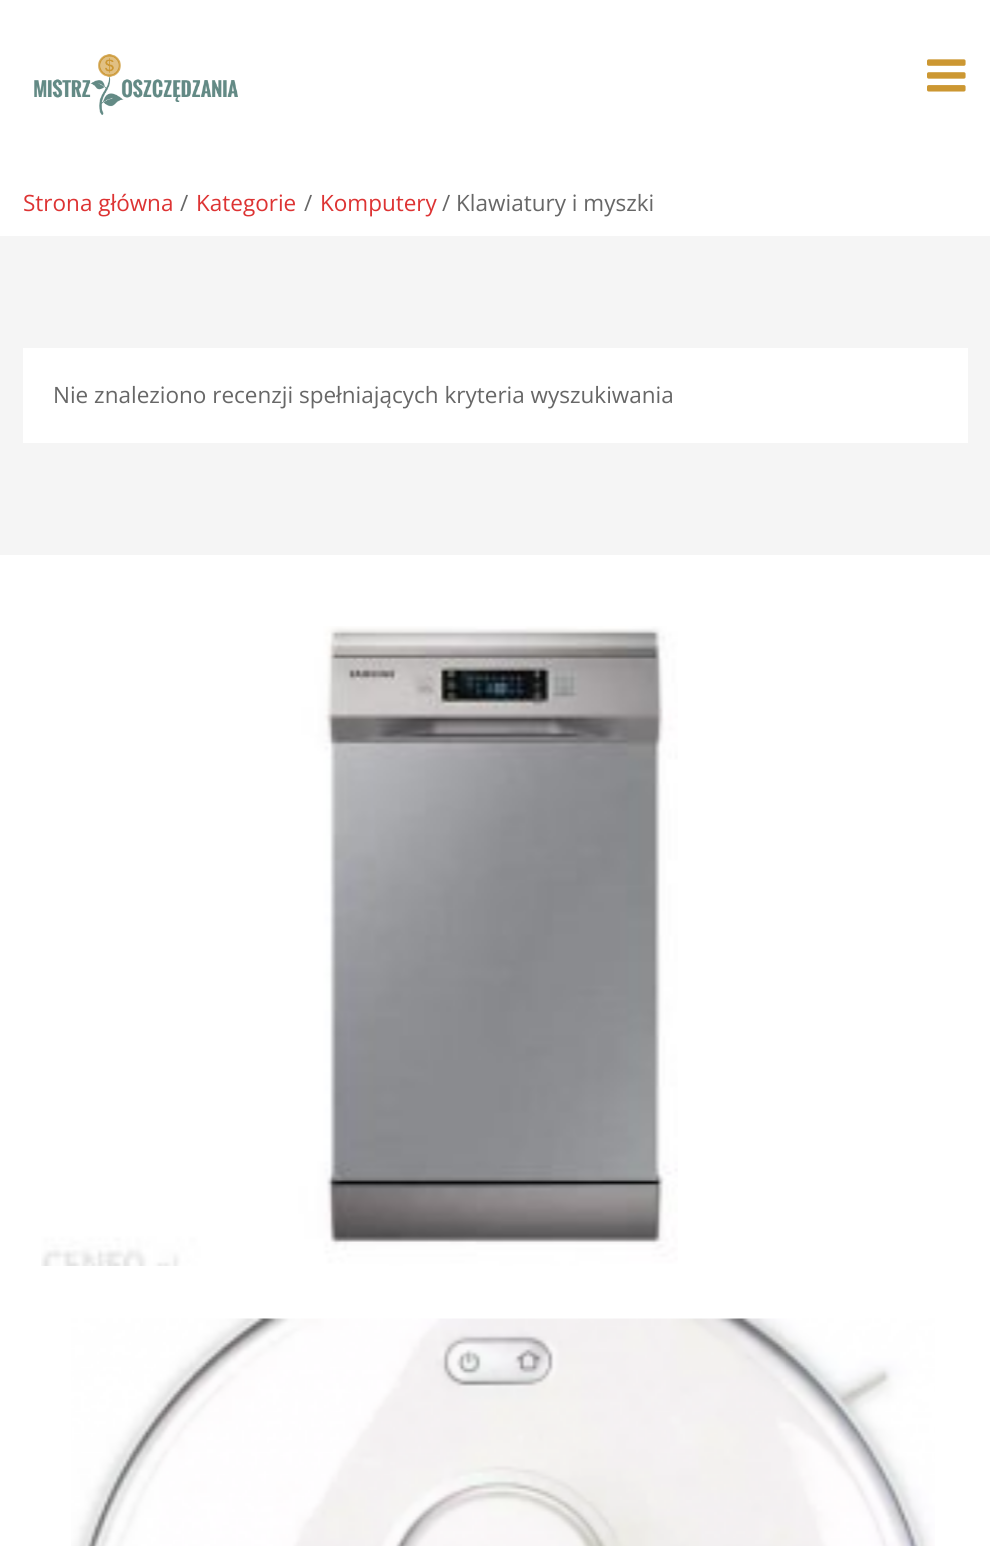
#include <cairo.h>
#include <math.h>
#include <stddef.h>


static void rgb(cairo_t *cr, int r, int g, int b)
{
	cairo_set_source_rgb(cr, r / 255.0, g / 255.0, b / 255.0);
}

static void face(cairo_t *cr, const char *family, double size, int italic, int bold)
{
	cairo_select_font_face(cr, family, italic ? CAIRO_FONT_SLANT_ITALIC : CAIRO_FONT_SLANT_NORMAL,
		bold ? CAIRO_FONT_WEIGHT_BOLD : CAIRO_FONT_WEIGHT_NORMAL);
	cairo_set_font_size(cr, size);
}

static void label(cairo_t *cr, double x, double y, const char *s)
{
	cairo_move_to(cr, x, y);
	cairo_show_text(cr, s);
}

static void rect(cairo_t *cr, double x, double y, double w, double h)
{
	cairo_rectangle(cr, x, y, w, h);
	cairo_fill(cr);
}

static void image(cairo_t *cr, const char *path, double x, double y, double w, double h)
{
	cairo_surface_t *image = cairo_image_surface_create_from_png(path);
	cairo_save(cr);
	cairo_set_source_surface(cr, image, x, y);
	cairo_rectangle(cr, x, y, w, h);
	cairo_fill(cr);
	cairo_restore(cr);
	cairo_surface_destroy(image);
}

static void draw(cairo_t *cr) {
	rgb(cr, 245, 245, 245);
	cairo_paint(cr);
	rgb(cr, 255, 255, 255);
	rect(cr, 0, 0, 990, 236);
	image(cr, "image0.png", 34, 54, 204, 61);
	image(cr, "image1.png", 927, 59, 39, 33);
	face(cr, "Open Sans", 22.5, 0, 0);
	rgb(cr, 221, 51, 51);
	label(cr, 23, 211, "Strona główna");
	rgb(cr, 103, 103, 103);
	label(cr, 180, 211, "/");
	rgb(cr, 221, 51, 51);
	label(cr, 196, 211, "Kategorie");
	rgb(cr, 103, 103, 103);
	label(cr, 304, 211, "/");
	rgb(cr, 221, 51, 51);
	label(cr, 320, 211, "Komputery");
	rgb(cr, 103, 103, 103);
	label(cr, 442, 211, "/ Klawiatury i myszki");
	rgb(cr, 255, 255, 255);
	rect(cr, 23, 348, 945, 95);
	rgb(cr, 103, 103, 103);
	label(cr, 53, 403, "Nie znaleziono recenzji spełniających kryteria wyszukiwania");
	rgb(cr, 255, 255, 255);
	rect(cr, 0, 555, 990, 991);
	image(cr, "image2.png", 41, 626, 637, 640);
	image(cr, "image3.png", 71, 1318, 864, 228);
}

int main(void) {
	cairo_surface_t *surface = cairo_image_surface_create(CAIRO_FORMAT_RGB24, 990, 1546);
	cairo_t *cr = cairo_create(surface);
	cairo_font_options_t *options = cairo_font_options_create();
	cairo_font_options_set_hint_metrics(options, CAIRO_HINT_METRICS_OFF);
	cairo_font_options_set_hint_style(options, CAIRO_HINT_STYLE_NONE);
	cairo_set_font_options(cr, options);
	cairo_set_miter_limit(cr, 4);
	draw(cr);
	cairo_surface_write_to_png(surface, "render.png");
	cairo_font_options_destroy(options);
	cairo_destroy(cr);
	cairo_surface_destroy(surface);
	return 0;
}
